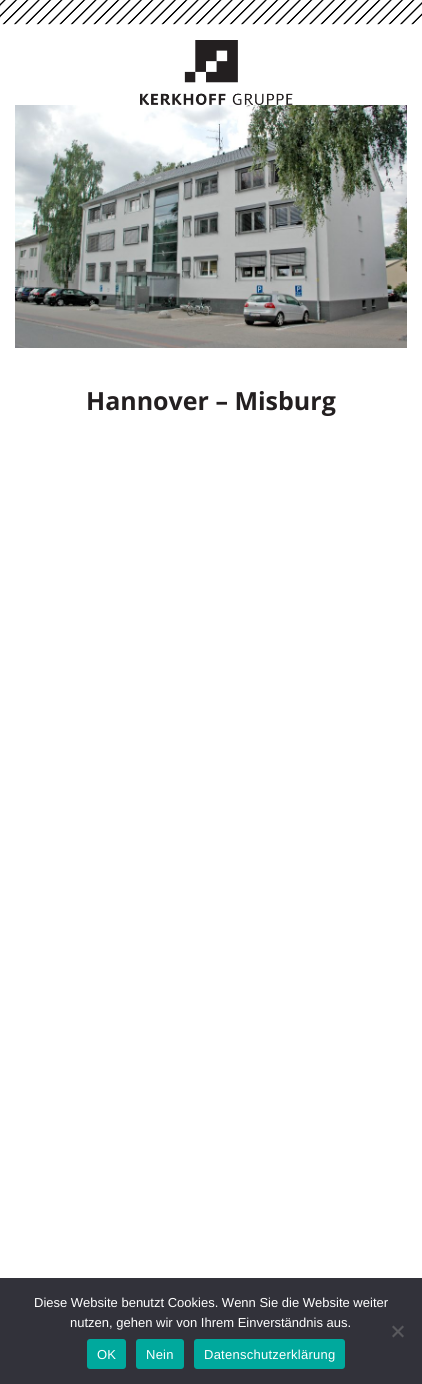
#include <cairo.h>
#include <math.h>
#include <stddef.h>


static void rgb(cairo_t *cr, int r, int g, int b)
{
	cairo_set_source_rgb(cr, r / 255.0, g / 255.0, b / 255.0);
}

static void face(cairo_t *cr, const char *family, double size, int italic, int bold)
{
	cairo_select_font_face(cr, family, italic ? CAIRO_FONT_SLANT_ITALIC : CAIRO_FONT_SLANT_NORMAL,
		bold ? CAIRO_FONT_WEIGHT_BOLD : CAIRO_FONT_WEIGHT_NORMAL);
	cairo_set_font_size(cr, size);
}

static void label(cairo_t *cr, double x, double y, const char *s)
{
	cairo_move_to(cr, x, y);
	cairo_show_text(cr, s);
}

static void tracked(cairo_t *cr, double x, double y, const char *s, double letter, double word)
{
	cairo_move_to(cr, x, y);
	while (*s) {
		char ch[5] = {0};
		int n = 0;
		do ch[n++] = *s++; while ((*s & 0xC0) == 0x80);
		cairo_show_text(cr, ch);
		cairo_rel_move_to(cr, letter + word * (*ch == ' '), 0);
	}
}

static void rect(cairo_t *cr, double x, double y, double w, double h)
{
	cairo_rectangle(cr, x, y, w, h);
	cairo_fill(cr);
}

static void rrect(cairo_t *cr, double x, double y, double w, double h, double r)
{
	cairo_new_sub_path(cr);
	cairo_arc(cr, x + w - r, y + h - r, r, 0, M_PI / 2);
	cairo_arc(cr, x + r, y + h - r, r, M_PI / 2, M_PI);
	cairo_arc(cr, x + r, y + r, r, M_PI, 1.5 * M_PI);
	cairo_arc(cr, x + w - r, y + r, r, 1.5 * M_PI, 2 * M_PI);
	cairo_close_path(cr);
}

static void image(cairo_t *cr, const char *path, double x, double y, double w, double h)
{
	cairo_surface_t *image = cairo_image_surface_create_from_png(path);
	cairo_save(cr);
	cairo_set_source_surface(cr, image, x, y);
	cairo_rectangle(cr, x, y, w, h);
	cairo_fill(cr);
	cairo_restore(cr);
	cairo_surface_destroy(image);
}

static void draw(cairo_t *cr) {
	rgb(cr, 255, 255, 255);
	cairo_paint(cr);
	image(cr, "image0.png", 0, 0, 422, 25);
	image(cr, "image1.png", 140, 40, 153, 65);
	image(cr, "image2.png", 15, 105, 392, 243);
	face(cr, "Open Sans", 25, 0, 1);
	rgb(cr, 35, 31, 32);
	label(cr, 86, 410, "Hannover – Misburg");
	rgb(cr, 50, 50, 58);
	rect(cr, 0, 1278, 422, 106);
	face(cr, "Liberation Sans", 13, 0, 0);
	rgb(cr, 255, 255, 255);
	label(cr, 34, 1307, "Diese Website benutzt Cookies. Wenn Sie die Website weiter");
	label(cr, 70, 1327, "nutzen, gehen wir von Ihrem Einverständnis aus.");
	rgb(cr, 89, 89, 93);
	cairo_new_path(cr);
	cairo_move_to(cr, 402.5, 1325.5);
	cairo_line_to(cr, 404, 1327);
	cairo_line_to(cr, 393.5, 1337.5);
	cairo_line_to(cr, 392, 1336);
	cairo_close_path(cr);
	cairo_fill(cr);
	cairo_new_path(cr);
	cairo_move_to(cr, 392, 1327);
	cairo_line_to(cr, 393.5, 1325.5);
	cairo_line_to(cr, 404, 1336);
	cairo_line_to(cr, 402.5, 1337.5);
	cairo_close_path(cr);
	cairo_fill(cr);
	rgb(cr, 0, 169, 157);
	rrect(cr, 87, 1339, 39, 30, 3);
	cairo_fill(cr);
	rgb(cr, 255, 255, 255);
	tracked(cr, 97, 1359, "OK", 0.25, 0);
	rgb(cr, 0, 169, 157);
	rrect(cr, 136, 1339, 48, 30, 3);
	cairo_fill(cr);
	rgb(cr, 255, 255, 255);
	tracked(cr, 146, 1359, "Nein", 0.25, 0);
	rgb(cr, 0, 169, 157);
	rrect(cr, 194, 1339, 151, 30, 3);
	cairo_fill(cr);
	rgb(cr, 255, 255, 255);
	tracked(cr, 204, 1359, "Datenschutzerklärung", 0.25, 0);
}

int main(void) {
	cairo_surface_t *surface = cairo_image_surface_create(CAIRO_FORMAT_RGB24, 422, 1384);
	cairo_t *cr = cairo_create(surface);
	cairo_font_options_t *options = cairo_font_options_create();
	cairo_font_options_set_hint_metrics(options, CAIRO_HINT_METRICS_OFF);
	cairo_font_options_set_hint_style(options, CAIRO_HINT_STYLE_NONE);
	cairo_set_font_options(cr, options);
	cairo_set_miter_limit(cr, 4);
	draw(cr);
	cairo_surface_write_to_png(surface, "render.png");
	cairo_font_options_destroy(options);
	cairo_destroy(cr);
	cairo_surface_destroy(surface);
	return 0;
}
